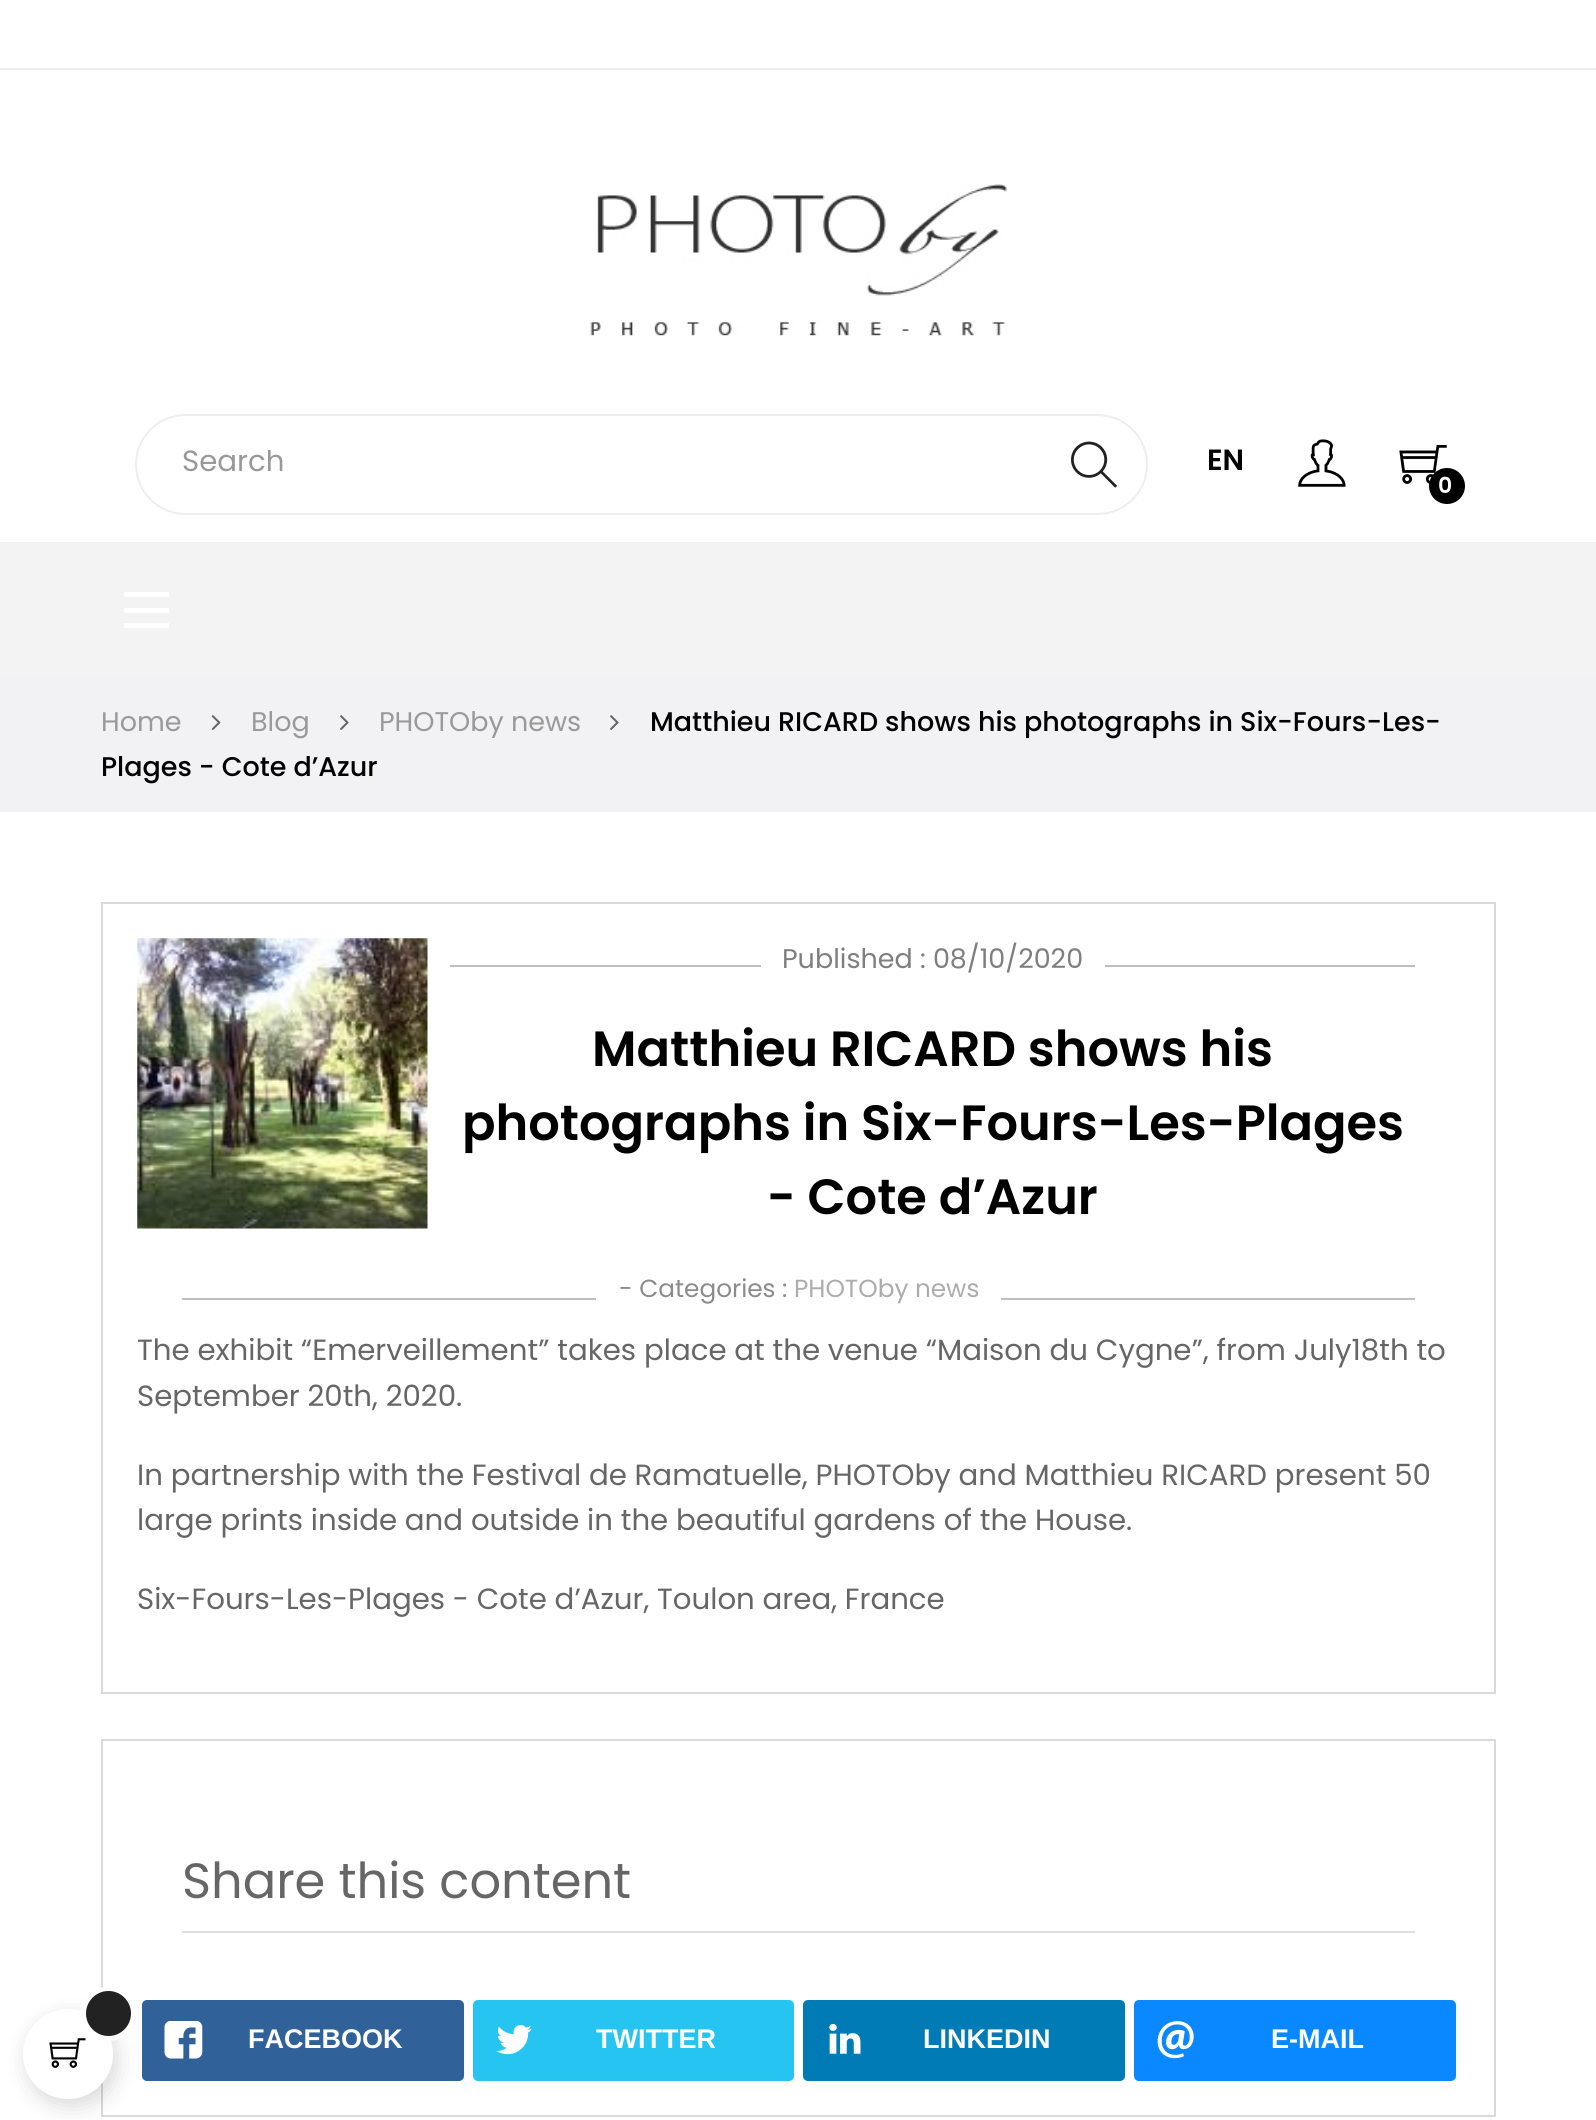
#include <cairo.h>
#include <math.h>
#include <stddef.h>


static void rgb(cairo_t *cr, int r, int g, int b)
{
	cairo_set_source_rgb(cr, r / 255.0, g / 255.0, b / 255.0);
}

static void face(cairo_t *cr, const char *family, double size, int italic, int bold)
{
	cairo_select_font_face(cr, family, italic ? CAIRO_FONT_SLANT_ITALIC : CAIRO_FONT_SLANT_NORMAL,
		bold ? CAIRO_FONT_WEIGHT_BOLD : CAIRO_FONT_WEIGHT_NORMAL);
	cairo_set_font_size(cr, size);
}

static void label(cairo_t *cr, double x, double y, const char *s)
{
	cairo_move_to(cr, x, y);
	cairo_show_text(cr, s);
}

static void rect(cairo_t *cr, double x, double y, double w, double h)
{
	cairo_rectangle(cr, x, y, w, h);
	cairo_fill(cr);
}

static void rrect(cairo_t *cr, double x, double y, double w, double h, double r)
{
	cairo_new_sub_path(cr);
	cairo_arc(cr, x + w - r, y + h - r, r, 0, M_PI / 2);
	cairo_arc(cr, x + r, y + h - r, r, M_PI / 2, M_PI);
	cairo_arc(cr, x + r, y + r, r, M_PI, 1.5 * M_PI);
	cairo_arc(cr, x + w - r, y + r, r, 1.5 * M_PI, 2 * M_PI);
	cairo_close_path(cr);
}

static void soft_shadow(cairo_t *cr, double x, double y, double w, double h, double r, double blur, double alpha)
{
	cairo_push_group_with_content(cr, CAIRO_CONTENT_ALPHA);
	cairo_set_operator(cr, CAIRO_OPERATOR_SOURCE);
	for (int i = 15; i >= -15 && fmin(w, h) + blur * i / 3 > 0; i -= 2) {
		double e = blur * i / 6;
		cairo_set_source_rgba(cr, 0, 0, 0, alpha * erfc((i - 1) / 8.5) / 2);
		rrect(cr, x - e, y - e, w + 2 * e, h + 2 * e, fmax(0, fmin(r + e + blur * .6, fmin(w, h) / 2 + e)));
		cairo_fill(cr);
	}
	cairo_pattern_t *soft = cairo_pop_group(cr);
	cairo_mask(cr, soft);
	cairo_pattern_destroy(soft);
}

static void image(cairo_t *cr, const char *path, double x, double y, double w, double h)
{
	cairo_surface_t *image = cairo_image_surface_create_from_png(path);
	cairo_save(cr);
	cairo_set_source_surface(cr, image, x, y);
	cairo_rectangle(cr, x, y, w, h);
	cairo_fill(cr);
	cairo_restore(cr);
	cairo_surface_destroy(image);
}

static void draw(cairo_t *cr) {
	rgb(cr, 255, 255, 255);
	cairo_paint(cr);
	cairo_rectangle(cr, 102, 1740, 1393, 376);
	rgb(cr, 218, 218, 218);
	cairo_stroke(cr);
	rgb(cr, 48, 97, 153);
	rrect(cr, 142, 2000, 322, 81, 5);
	cairo_fill(cr);
	rgb(cr, 0, 0, 0);
	soft_shadow(cr, 27, 2016, 90, 90, 45, 11, 0.15);
	rgb(cr, 255, 255, 255);
	cairo_arc(cr, 68, 2054, 45, 0, 2 * M_PI);
	cairo_fill(cr);
	image(cr, "image0.png", 49, 2038, 37, 30);
	cairo_arc(cr, 108, 2014, 24.5, 0, 2 * M_PI);
	cairo_set_line_width(cr, 5);
	cairo_stroke(cr);
	rgb(cr, 34, 34, 34);
	cairo_arc(cr, 108.5, 2013.5, 22.5, 0, 2 * M_PI);
	cairo_fill(cr);
	rgb(cr, 238, 238, 238);
	rect(cr, 0, 68, 1596, 2);
	image(cr, "image1.png", 590, 184, 417, 152);
	rrect(cr, 136, 415, 1011, 99, 49.5);
	cairo_set_line_width(cr, 2);
	cairo_stroke(cr);
	cairo_save(cr);
	cairo_rectangle(cr, 182, 450, 840, 29);
	cairo_clip(cr);
	face(cr, "Poppins", 29.25, 0, 0);
	rgb(cr, 153, 153, 153);
	label(cr, 182, 471, "Search");
	cairo_restore(cr);
	image(cr, "image2.png", 1071, 441, 46, 47);
	face(cr, "Poppins SemiBold", 29.25, 0, 0);
	rgb(cr, 0, 0, 0);
	label(cr, 1207, 470, "EN");
	image(cr, "image3.png", 1298, 439, 48, 48);
	image(cr, "image4.png", 1399, 445, 48, 39);
	cairo_arc(cr, 1447, 486, 18, 0, 2 * M_PI);
	cairo_fill(cr);
	face(cr, "Poppins SemiBold", 22, 0, 0);
	rgb(cr, 255, 255, 255);
	label(cr, 1438, 493, "0");
	rgb(cr, 243, 243, 243);
	rect(cr, 0, 542, 1596, 135);
	rgb(cr, 255, 255, 255);
	rect(cr, 124, 592, 45, 5);
	rect(cr, 124, 623, 45, 5);
	rect(cr, 124, 608, 45, 5);
	rgb(cr, 242, 242, 244);
	rect(cr, 0, 677, 1596, 135);
	face(cr, "Poppins", 27, 0, 0);
	rgb(cr, 153, 153, 153);
	label(cr, 101, 731, "Home");
	image(cr, "image5.png", 211, 715, 10, 15);
	label(cr, 251, 731, "Blog");
	image(cr, "image6.png", 340, 715, 9, 15);
	label(cr, 379, 731, "PHOTOby news");
	image(cr, "image6.png", 610, 715, 9, 15);
	face(cr, "Poppins Medium", 27, 0, 0);
	rgb(cr, 0, 0, 0);
	label(cr, 650, 731, "Matthieu RICARD shows his photographs in Six-Fours-Les-");
	label(cr, 101, 776, "Plages - Cote d’Azur");
	cairo_rectangle(cr, 102, 903, 1393, 790);
	rgb(cr, 218, 218, 218);
	cairo_stroke(cr);
	image(cr, "image7.png", 137, 938, 291, 291);
	rgb(cr, 191, 191, 191);
	rect(cr, 450, 965, 965, 2);
	rgb(cr, 255, 255, 255);
	rect(cr, 761, 965, 344, 2);
	face(cr, "Poppins", 27, 0, 0);
	rgb(cr, 127, 127, 127);
	label(cr, 782, 968, "Published : 08/10/2020");
	face(cr, "Poppins SemiBold", 49.5, 0, 0);
	rgb(cr, 0, 0, 0);
	label(cr, 592, 1066, "Matthieu RICARD shows his");
	label(cr, 462, 1140, "photographs in Six-Fours-Les-Plages");
	label(cr, 767, 1214, "- Cote d’Azur");
	rgb(cr, 191, 191, 191);
	rect(cr, 182, 1298, 1233, 2);
	rgb(cr, 255, 255, 255);
	rect(cr, 596, 1298, 405, 2);
	face(cr, "Poppins", 24.75, 0, 0);
	rgb(cr, 139, 139, 139);
	label(cr, 619, 1297, "- Categories :");
	rgb(cr, 172, 172, 172);
	label(cr, 794, 1297, "PHOTOby news");
	face(cr, "Poppins", 29.25, 0, 0);
	rgb(cr, 102, 102, 102);
	label(cr, 137, 1360, "The exhibit “Emerveillement” takes place at the venue “Maison du Cygne”, from July18th to");
	label(cr, 137, 1406, "September 20th, 2020.");
	label(cr, 137, 1485, "In partnership with the Festival de Ramatuelle, PHOTOby and Matthieu RICARD present 50");
	label(cr, 137, 1530, "large prints inside and outside in the beautiful gardens of the House.");
	label(cr, 137, 1609, "Six-Fours-Les-Plages - Cote d’Azur, Toulon area, France");
	rgb(cr, 223, 223, 223);
	rect(cr, 182, 1931, 1233, 2);
	face(cr, "Poppins", 49.5, 0, 0);
	rgb(cr, 102, 102, 102);
	label(cr, 182, 1898, "Share this content");
	image(cr, "image8.png", 164, 2021, 39, 38);
	face(cr, "Liberation Sans", 27, 0, 1);
	rgb(cr, 255, 255, 255);
	label(cr, 248, 2048, "FACEBOOK");
	rgb(cr, 38, 196, 241);
	rrect(cr, 473, 2000, 321, 81, 5);
	cairo_fill(cr);
	image(cr, "image9.png", 496, 2025, 36, 30);
	rgb(cr, 255, 255, 255);
	label(cr, 596, 2048, "TWITTER");
	rgb(cr, 0, 123, 182);
	rrect(cr, 803, 2000, 322, 81, 5);
	cairo_fill(cr);
	image(cr, "image10.png", 829, 2023, 32, 31);
	rgb(cr, 255, 255, 255);
	label(cr, 923, 2048, "LINKEDIN");
	rgb(cr, 10, 136, 255);
	rrect(cr, 1134, 2000, 322, 81, 5);
	cairo_fill(cr);
	image(cr, "image11.png", 1157, 2021, 37, 38);
	rgb(cr, 255, 255, 255);
	label(cr, 1271, 2048, "E-MAIL");
}

int main(void) {
	cairo_surface_t *surface = cairo_image_surface_create(CAIRO_FORMAT_RGB24, 1596, 2120);
	cairo_t *cr = cairo_create(surface);
	cairo_font_options_t *options = cairo_font_options_create();
	cairo_font_options_set_hint_metrics(options, CAIRO_HINT_METRICS_OFF);
	cairo_font_options_set_hint_style(options, CAIRO_HINT_STYLE_NONE);
	cairo_set_font_options(cr, options);
	cairo_set_miter_limit(cr, 4);
	draw(cr);
	cairo_surface_write_to_png(surface, "render.png");
	cairo_font_options_destroy(options);
	cairo_destroy(cr);
	cairo_surface_destroy(surface);
	return 0;
}
